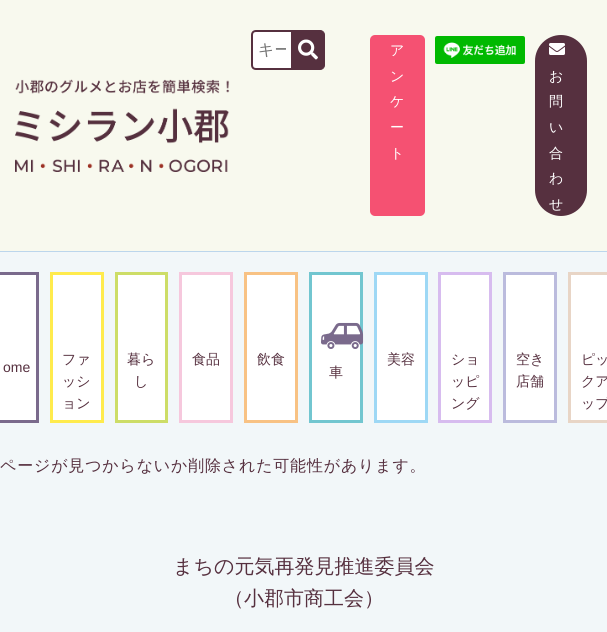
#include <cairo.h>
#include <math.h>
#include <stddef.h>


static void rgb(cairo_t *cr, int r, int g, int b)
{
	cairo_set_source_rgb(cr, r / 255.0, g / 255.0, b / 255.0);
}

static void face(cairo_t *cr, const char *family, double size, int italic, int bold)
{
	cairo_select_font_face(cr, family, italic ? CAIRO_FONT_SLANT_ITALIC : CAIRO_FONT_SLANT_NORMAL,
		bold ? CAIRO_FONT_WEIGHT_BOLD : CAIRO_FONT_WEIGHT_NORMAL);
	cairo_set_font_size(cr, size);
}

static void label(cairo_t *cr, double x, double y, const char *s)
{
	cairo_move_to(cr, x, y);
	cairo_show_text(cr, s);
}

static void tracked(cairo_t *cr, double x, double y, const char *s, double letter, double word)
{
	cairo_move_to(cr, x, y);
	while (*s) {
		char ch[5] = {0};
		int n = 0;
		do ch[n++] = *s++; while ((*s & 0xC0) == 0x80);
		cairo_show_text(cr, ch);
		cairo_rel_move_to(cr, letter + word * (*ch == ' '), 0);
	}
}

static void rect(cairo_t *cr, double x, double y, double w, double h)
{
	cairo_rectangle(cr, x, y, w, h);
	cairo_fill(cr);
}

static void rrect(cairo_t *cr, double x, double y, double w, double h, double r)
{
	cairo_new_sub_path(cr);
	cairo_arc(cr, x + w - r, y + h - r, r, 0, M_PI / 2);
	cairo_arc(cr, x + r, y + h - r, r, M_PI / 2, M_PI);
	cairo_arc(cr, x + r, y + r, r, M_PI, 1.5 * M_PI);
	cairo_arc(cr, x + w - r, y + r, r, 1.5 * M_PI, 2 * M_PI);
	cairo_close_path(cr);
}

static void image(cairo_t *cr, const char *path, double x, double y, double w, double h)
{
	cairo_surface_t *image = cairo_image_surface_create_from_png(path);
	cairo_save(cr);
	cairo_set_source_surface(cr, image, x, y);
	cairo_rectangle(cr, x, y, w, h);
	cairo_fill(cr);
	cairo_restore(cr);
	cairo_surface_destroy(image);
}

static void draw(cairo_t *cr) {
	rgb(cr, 242, 247, 249);
	cairo_paint(cr);
	rgb(cr, 248, 249, 238);
	rect(cr, 0, 0, 607, 251);
	rgb(cr, 188, 214, 236);
	rect(cr, 0, 251, 607, 1);
	image(cr, "image0.png", 15, 79, 215, 93);
	rgb(cr, 255, 255, 255);
	cairo_new_path(cr);
	cairo_move_to(cr, 256, 30);
	cairo_line_to(cr, 291, 30);
	cairo_line_to(cr, 291, 70);
	cairo_line_to(cr, 256, 70);
	cairo_curve_to(cr, 253, 70, 251, 68, 251, 65);
	cairo_line_to(cr, 251, 35);
	cairo_curve_to(cr, 251, 32, 253, 30, 256, 30);
	cairo_close_path(cr);
	cairo_fill(cr);
	rgb(cr, 86, 48, 63);
	cairo_set_fill_rule(cr, CAIRO_FILL_RULE_EVEN_ODD);
	cairo_new_path(cr);
	cairo_move_to(cr, 256, 30);
	cairo_line_to(cr, 291, 30);
	cairo_line_to(cr, 291, 70);
	cairo_line_to(cr, 256, 70);
	cairo_curve_to(cr, 253, 70, 251, 68, 251, 65);
	cairo_line_to(cr, 251, 35);
	cairo_curve_to(cr, 251, 32, 253, 30, 256, 30);
	cairo_close_path(cr);
	cairo_move_to(cr, 256, 32);
	cairo_line_to(cr, 291, 32);
	cairo_line_to(cr, 291, 68);
	cairo_line_to(cr, 256, 68);
	cairo_curve_to(cr, 254, 68, 253, 67, 253, 65);
	cairo_line_to(cr, 253, 35);
	cairo_curve_to(cr, 253, 33, 254, 32, 256, 32);
	cairo_close_path(cr);
	cairo_fill(cr);
	cairo_save(cr);
	cairo_set_fill_rule(cr, CAIRO_FILL_RULE_WINDING);
	cairo_rectangle(cr, 258, 40, 28, 21);
	cairo_clip(cr);
	face(cr, "WenQuanYi Zen Hei Medium", 16, 0, 0);
	rgb(cr, 117, 117, 117);
	label(cr, 258, 55, "キー");
	cairo_restore(cr);
	cairo_new_path(cr);
	cairo_move_to(cr, 291.5, 30.5);
	cairo_line_to(cr, 320, 30.5);
	cairo_curve_to(cr, 322.5, 30.5, 324.5, 32.5, 324.5, 35);
	cairo_line_to(cr, 324.5, 65);
	cairo_curve_to(cr, 324.5, 67.5, 322.5, 69.5, 320, 69.5);
	cairo_line_to(cr, 291.5, 69.5);
	cairo_close_path(cr);
	cairo_fill_preserve(cr);
	cairo_set_line_width(cr, 1);
	cairo_stroke(cr);
	image(cr, "image1.png", 298, 39, 20, 21);
	rgb(cr, 245, 81, 114);
	rrect(cr, 370, 35, 55, 181, 5);
	cairo_fill(cr);
	face(cr, "WenQuanYi Zen Hei Medium", 14, 0, 0);
	rgb(cr, 255, 255, 255);
	label(cr, 390, 55, "ア");
	label(cr, 390, 81, "ン");
	label(cr, 390, 106, "ケ");
	label(cr, 390, 132, "ー");
	label(cr, 390, 158, "ト");
	image(cr, "image2.png", 435, 36, 90, 28);
	rgb(cr, 86, 48, 63);
	rrect(cr, 535, 35, 52, 181, 26);
	cairo_fill(cr);
	image(cr, "image3.png", 549, 43, 16, 12);
	rgb(cr, 255, 255, 255);
	label(cr, 549, 81, "お");
	label(cr, 549, 106, "問");
	label(cr, 549, 132, "い");
	label(cr, 549, 158, "合");
	label(cr, 549, 183, "わ");
	label(cr, 549, 209, "せ");
	cairo_rectangle(cr, -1.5, 273.5, 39, 148);
	cairo_fill_preserve(cr);
	rgb(cr, 122, 106, 140);
	cairo_set_line_width(cr, 3);
	cairo_stroke(cr);
	face(cr, "Liberation Sans", 14, 0, 0);
	rgb(cr, 86, 48, 63);
	label(cr, 3, 372, "ome");
	rgb(cr, 255, 255, 255);
	cairo_rectangle(cr, 51.5, 273.5, 51, 148);
	cairo_fill_preserve(cr);
	rgb(cr, 255, 235, 77);
	cairo_stroke(cr);
	face(cr, "WenQuanYi Zen Hei Medium", 14, 0, 0);
	rgb(cr, 86, 48, 63);
	label(cr, 62, 364, "ファ");
	label(cr, 62, 386, "ッシ");
	label(cr, 62, 408, "ョン");
	rgb(cr, 255, 255, 255);
	cairo_rectangle(cr, 116.5, 273.5, 50, 148);
	cairo_fill_preserve(cr);
	rgb(cr, 205, 221, 103);
	cairo_stroke(cr);
	rgb(cr, 86, 48, 63);
	label(cr, 127, 364, "暮ら");
	label(cr, 134, 386, "し");
	rgb(cr, 255, 255, 255);
	cairo_rectangle(cr, 180.5, 273.5, 51, 148);
	cairo_fill_preserve(cr);
	rgb(cr, 246, 200, 221);
	cairo_stroke(cr);
	rgb(cr, 86, 48, 63);
	label(cr, 192, 364, "食品");
	rgb(cr, 255, 255, 255);
	cairo_rectangle(cr, 245.5, 273.5, 51, 148);
	cairo_fill_preserve(cr);
	rgb(cr, 248, 194, 132);
	cairo_stroke(cr);
	rgb(cr, 86, 48, 63);
	label(cr, 257, 364, "飲食");
	rgb(cr, 255, 255, 255);
	cairo_rectangle(cr, 310.5, 273.5, 51, 148);
	cairo_fill_preserve(cr);
	rgb(cr, 114, 198, 208);
	cairo_stroke(cr);
	image(cr, "image4.png", 321, 322, 43, 27);
	rgb(cr, 86, 48, 63);
	label(cr, 329, 377, "車");
	rgb(cr, 255, 255, 255);
	cairo_rectangle(cr, 375.5, 273.5, 51, 148);
	cairo_fill_preserve(cr);
	rgb(cr, 158, 216, 245);
	cairo_stroke(cr);
	rgb(cr, 86, 48, 63);
	label(cr, 387, 364, "美容");
	rgb(cr, 255, 255, 255);
	cairo_rectangle(cr, 439.5, 273.5, 51, 148);
	cairo_fill_preserve(cr);
	rgb(cr, 215, 188, 239);
	cairo_stroke(cr);
	rgb(cr, 86, 48, 63);
	label(cr, 451, 364, "ショ");
	label(cr, 451, 386, "ッピ");
	label(cr, 451, 408, "ング");
	rgb(cr, 255, 255, 255);
	cairo_rectangle(cr, 504.5, 273.5, 51, 148);
	cairo_fill_preserve(cr);
	rgb(cr, 187, 187, 221);
	cairo_stroke(cr);
	rgb(cr, 86, 48, 63);
	label(cr, 516, 364, "空き");
	label(cr, 516, 386, "店舗");
	rgb(cr, 255, 255, 255);
	cairo_rectangle(cr, 569.5, 273.5, 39, 148);
	cairo_fill_preserve(cr);
	rgb(cr, 232, 213, 198);
	cairo_stroke(cr);
	rgb(cr, 86, 48, 63);
	label(cr, 581, 364, "ピッ");
	label(cr, 581, 386, "クア");
	label(cr, 581, 408, "ップ");
	face(cr, "WenQuanYi Zen Hei Medium", 16, 0, 0);
	tracked(cr, 0, 471, "ページが見つからないか削除された可能性があります。", 0.8, 0);
	face(cr, "WenQuanYi Zen Hei Medium", 20, 0, 0);
	label(cr, 173, 573, "まちの元気再発見推進委員会");
	label(cr, 224, 605, "（小郡市商工会）");
}

int main(void) {
	cairo_surface_t *surface = cairo_image_surface_create(CAIRO_FORMAT_RGB24, 607, 632);
	cairo_t *cr = cairo_create(surface);
	cairo_font_options_t *options = cairo_font_options_create();
	cairo_font_options_set_hint_metrics(options, CAIRO_HINT_METRICS_OFF);
	cairo_font_options_set_hint_style(options, CAIRO_HINT_STYLE_NONE);
	cairo_set_font_options(cr, options);
	cairo_set_miter_limit(cr, 4);
	draw(cr);
	cairo_surface_write_to_png(surface, "render.png");
	cairo_font_options_destroy(options);
	cairo_destroy(cr);
	cairo_surface_destroy(surface);
	return 0;
}
